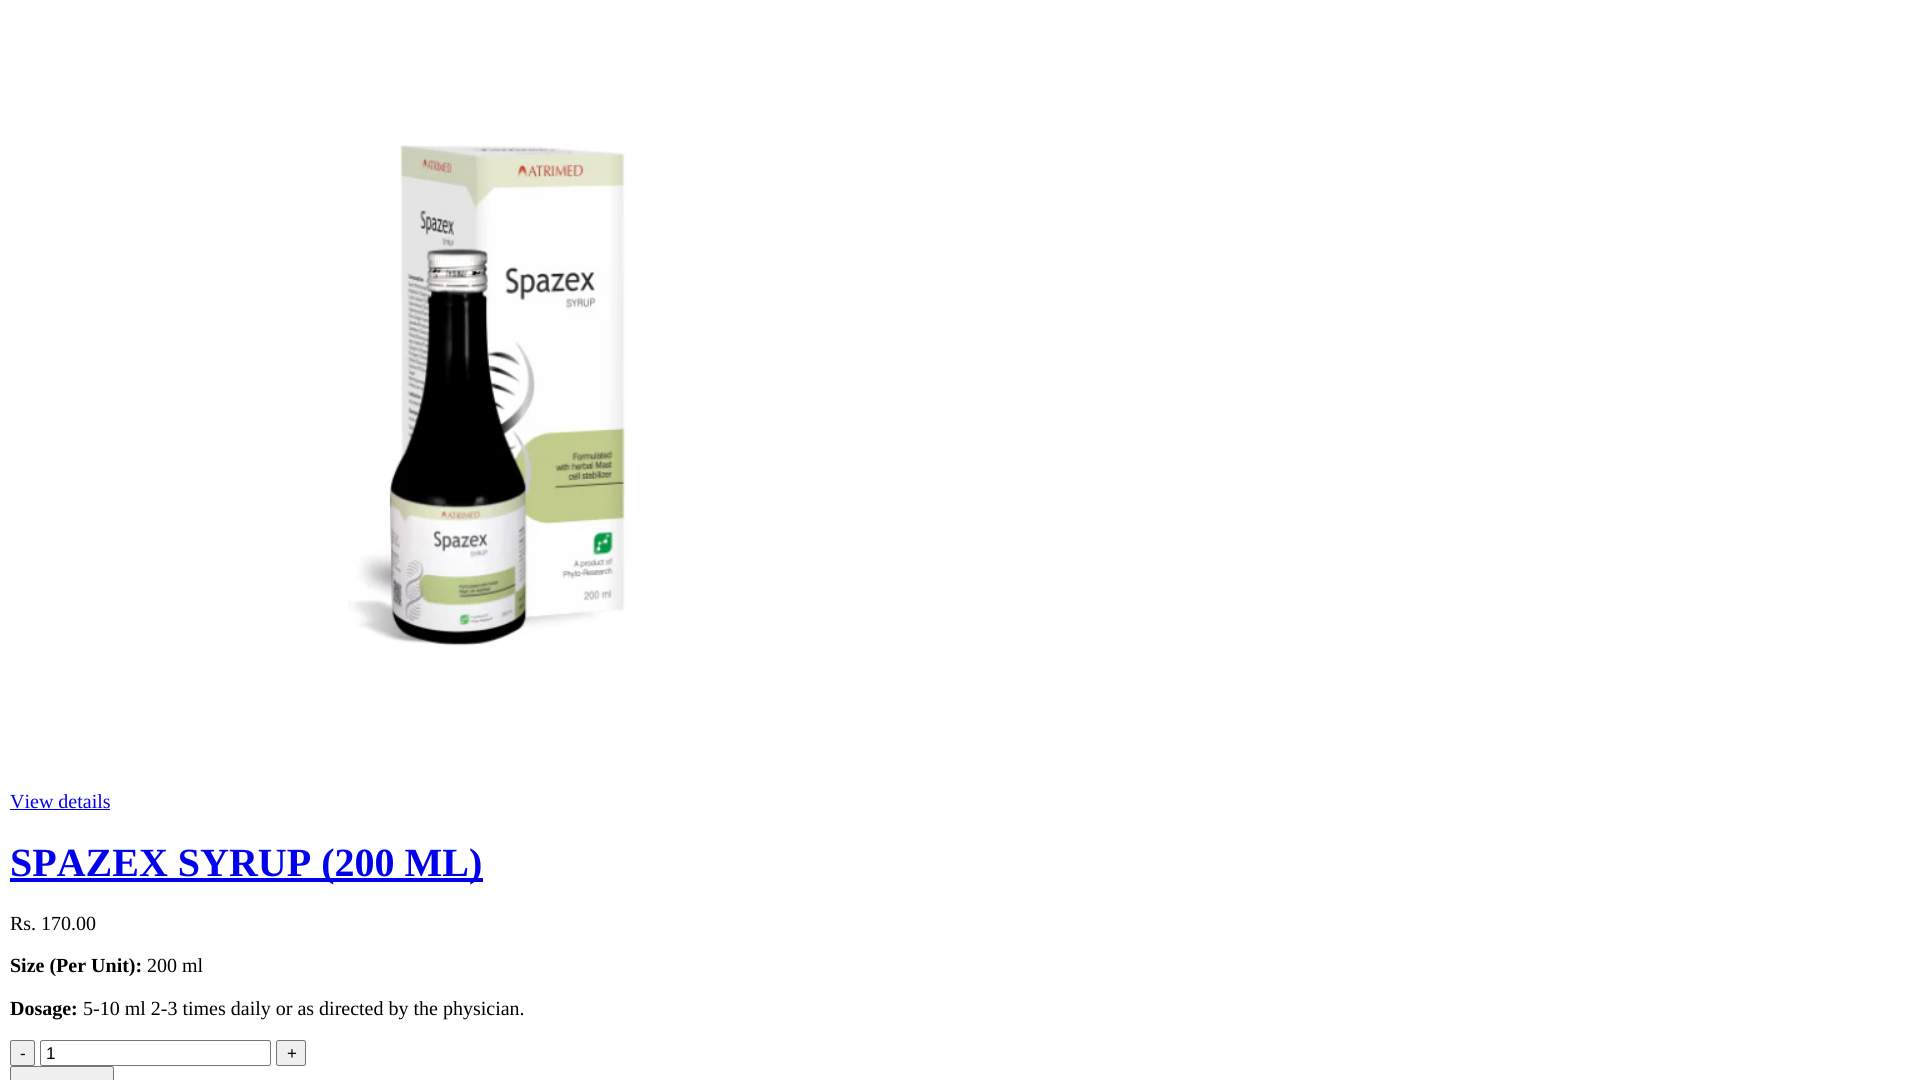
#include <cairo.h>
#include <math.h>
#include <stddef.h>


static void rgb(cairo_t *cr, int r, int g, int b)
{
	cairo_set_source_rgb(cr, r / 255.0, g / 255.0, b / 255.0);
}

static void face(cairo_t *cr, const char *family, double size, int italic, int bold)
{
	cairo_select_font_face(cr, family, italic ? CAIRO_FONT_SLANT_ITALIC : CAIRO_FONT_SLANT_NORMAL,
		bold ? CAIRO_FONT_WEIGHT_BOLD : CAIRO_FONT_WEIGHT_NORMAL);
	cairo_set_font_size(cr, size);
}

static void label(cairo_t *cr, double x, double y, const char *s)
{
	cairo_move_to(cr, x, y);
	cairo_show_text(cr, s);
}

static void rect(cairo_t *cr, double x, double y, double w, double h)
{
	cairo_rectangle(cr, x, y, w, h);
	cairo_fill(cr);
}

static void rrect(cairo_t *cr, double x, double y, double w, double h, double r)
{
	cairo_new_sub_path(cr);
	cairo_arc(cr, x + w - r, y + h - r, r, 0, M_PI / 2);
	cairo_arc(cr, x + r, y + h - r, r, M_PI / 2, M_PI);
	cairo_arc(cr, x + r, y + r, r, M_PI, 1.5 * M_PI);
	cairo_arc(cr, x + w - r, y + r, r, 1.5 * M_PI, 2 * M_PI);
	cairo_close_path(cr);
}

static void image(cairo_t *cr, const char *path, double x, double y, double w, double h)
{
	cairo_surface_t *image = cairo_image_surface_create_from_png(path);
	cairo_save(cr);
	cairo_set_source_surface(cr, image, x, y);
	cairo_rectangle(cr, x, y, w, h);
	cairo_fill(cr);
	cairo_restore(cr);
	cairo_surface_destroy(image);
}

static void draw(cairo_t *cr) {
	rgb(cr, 255, 255, 255);
	cairo_paint(cr);
	image(cr, "image0.png", 348, 145, 282, 501);
	face(cr, "Liberation Serif", 20, 0, 0);
	rgb(cr, 0, 0, 238);
	label(cr, 10, 808, "View details");
	rect(cr, 10, 809, 100, 1);
	rect(cr, 10, 878, 473, 4);
	face(cr, "Liberation Serif", 40, 0, 1);
	label(cr, 10, 876, "SPAZEX SYRUP (200 ML)");
	face(cr, "Liberation Serif", 20, 0, 0);
	rgb(cr, 0, 0, 0);
	label(cr, 10, 930, "Rs. 170.00");
	face(cr, "Liberation Serif", 20, 0, 1);
	label(cr, 10, 972, "Size (Per Unit):");
	face(cr, "Liberation Serif", 20, 0, 0);
	label(cr, 147, 972, "200 ml");
	face(cr, "Liberation Serif", 20, 0, 1);
	label(cr, 10, 1015, "Dosage:");
	face(cr, "Liberation Serif", 20, 0, 0);
	label(cr, 83, 1015, "5-10 ml 2-3 times daily or as directed by the physician.");
	rgb(cr, 239, 239, 239);
	rrect(cr, 10.5, 1040.5, 24, 25, 2);
	cairo_fill_preserve(cr);
	rgb(cr, 118, 118, 118);
	cairo_set_line_width(cr, 1);
	cairo_stroke(cr);
	face(cr, "Liberation Sans", 17, 0, 0);
	rgb(cr, 0, 0, 0);
	label(cr, 20, 1059, "-");
	rrect(cr, 40.5, 1040.5, 230, 25, 2);
	rgb(cr, 118, 118, 118);
	cairo_stroke(cr);
	rgb(cr, 0, 0, 0);
	label(cr, 46, 1059, "1");
	rgb(cr, 239, 239, 239);
	rrect(cr, 276.5, 1040.5, 29, 25, 2);
	cairo_fill_preserve(cr);
	rgb(cr, 118, 118, 118);
	cairo_stroke(cr);
	rgb(cr, 0, 0, 0);
	label(cr, 287, 1059, "+");
	rgb(cr, 239, 239, 239);
	rrect(cr, 10.5, 1066.5, 103, 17, 2);
	cairo_fill_preserve(cr);
	rgb(cr, 118, 118, 118);
	cairo_stroke(cr);
}

int main(void) {
	cairo_surface_t *surface = cairo_image_surface_create(CAIRO_FORMAT_RGB24, 1916, 1080);
	cairo_t *cr = cairo_create(surface);
	cairo_font_options_t *options = cairo_font_options_create();
	cairo_font_options_set_hint_metrics(options, CAIRO_HINT_METRICS_OFF);
	cairo_font_options_set_hint_style(options, CAIRO_HINT_STYLE_NONE);
	cairo_set_font_options(cr, options);
	cairo_set_miter_limit(cr, 4);
	draw(cr);
	cairo_surface_write_to_png(surface, "render.png");
	cairo_font_options_destroy(options);
	cairo_destroy(cr);
	cairo_surface_destroy(surface);
	return 0;
}
